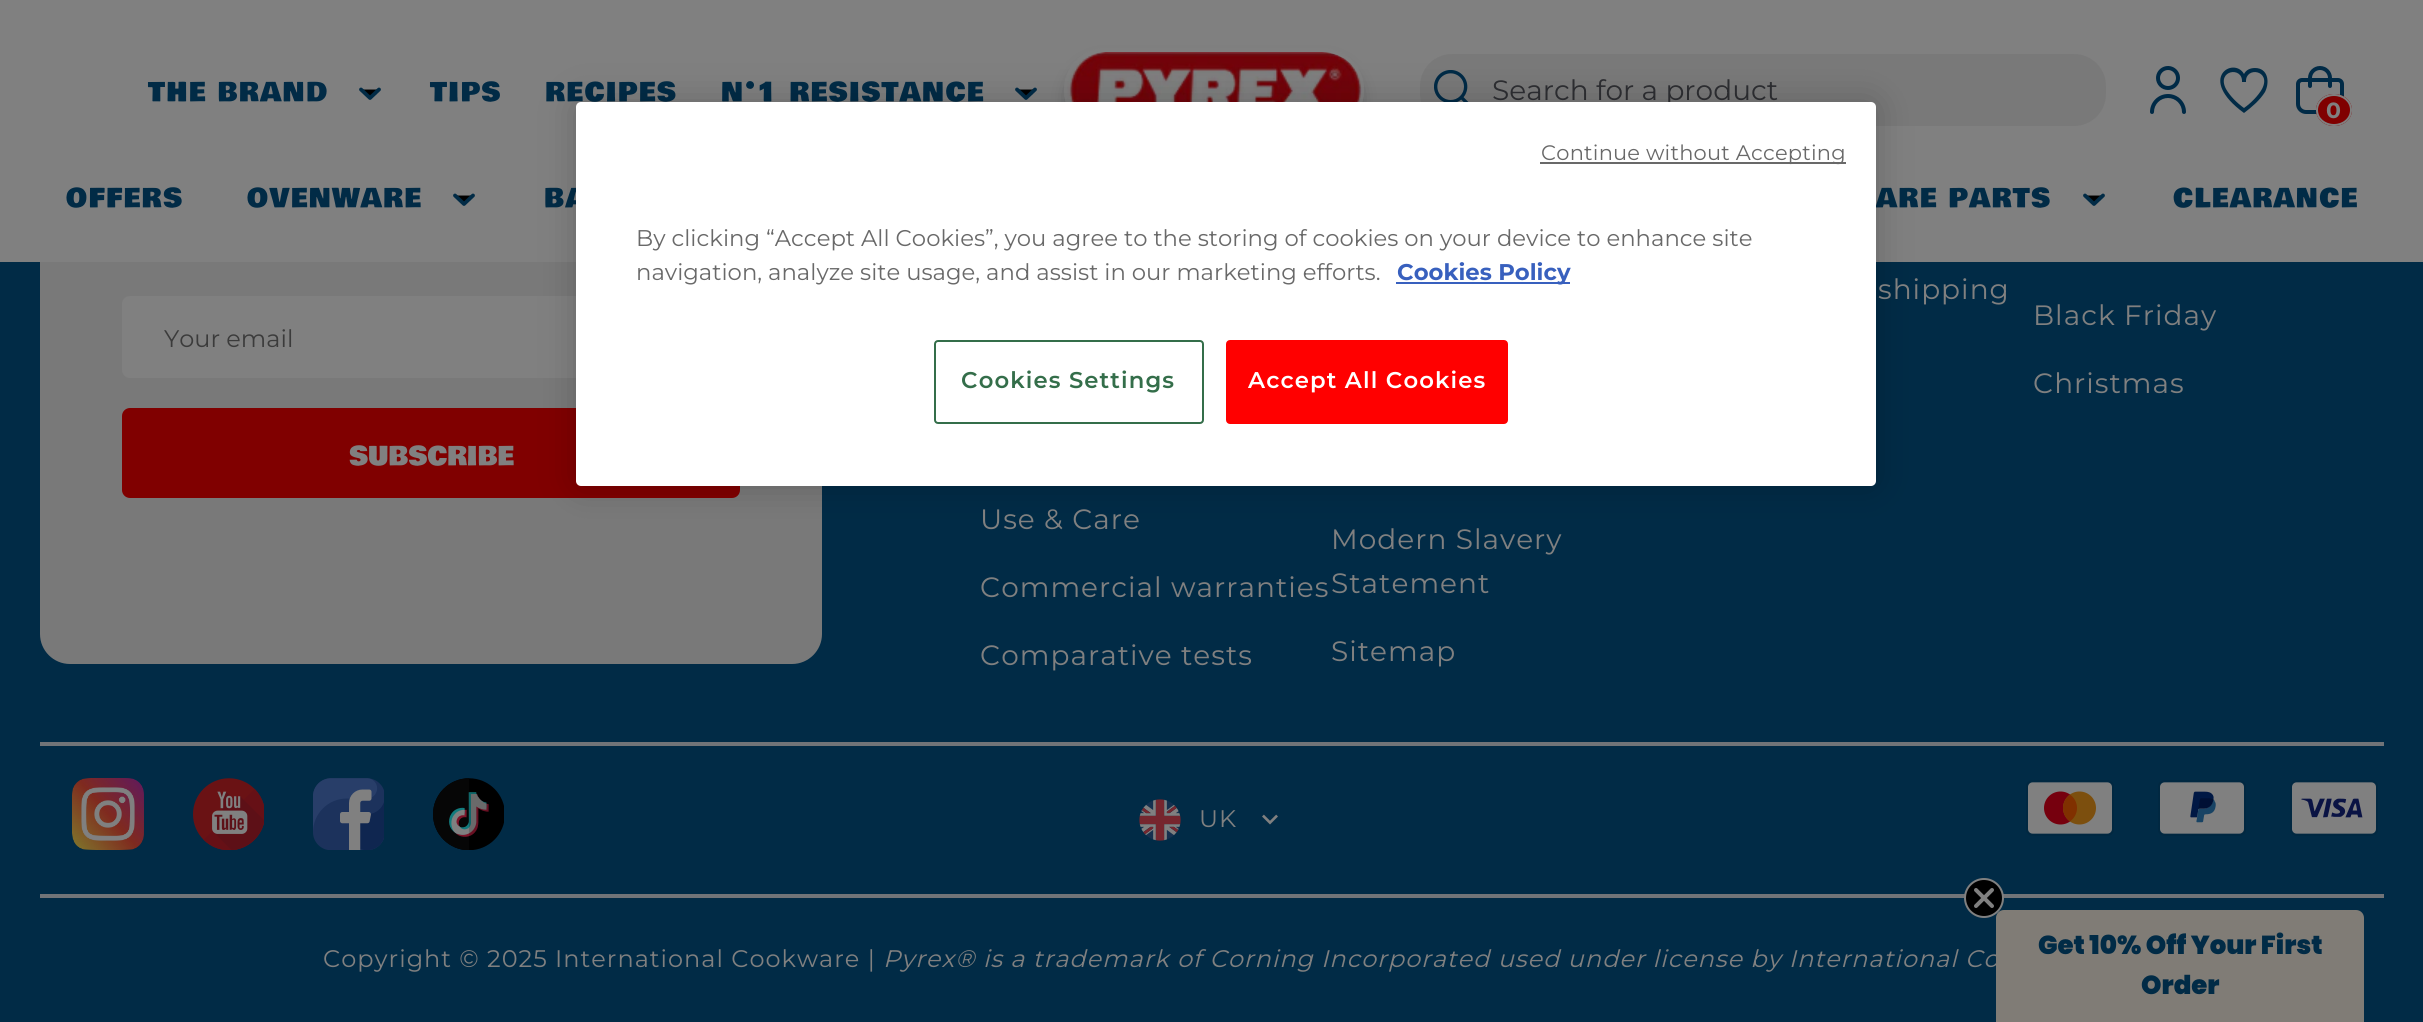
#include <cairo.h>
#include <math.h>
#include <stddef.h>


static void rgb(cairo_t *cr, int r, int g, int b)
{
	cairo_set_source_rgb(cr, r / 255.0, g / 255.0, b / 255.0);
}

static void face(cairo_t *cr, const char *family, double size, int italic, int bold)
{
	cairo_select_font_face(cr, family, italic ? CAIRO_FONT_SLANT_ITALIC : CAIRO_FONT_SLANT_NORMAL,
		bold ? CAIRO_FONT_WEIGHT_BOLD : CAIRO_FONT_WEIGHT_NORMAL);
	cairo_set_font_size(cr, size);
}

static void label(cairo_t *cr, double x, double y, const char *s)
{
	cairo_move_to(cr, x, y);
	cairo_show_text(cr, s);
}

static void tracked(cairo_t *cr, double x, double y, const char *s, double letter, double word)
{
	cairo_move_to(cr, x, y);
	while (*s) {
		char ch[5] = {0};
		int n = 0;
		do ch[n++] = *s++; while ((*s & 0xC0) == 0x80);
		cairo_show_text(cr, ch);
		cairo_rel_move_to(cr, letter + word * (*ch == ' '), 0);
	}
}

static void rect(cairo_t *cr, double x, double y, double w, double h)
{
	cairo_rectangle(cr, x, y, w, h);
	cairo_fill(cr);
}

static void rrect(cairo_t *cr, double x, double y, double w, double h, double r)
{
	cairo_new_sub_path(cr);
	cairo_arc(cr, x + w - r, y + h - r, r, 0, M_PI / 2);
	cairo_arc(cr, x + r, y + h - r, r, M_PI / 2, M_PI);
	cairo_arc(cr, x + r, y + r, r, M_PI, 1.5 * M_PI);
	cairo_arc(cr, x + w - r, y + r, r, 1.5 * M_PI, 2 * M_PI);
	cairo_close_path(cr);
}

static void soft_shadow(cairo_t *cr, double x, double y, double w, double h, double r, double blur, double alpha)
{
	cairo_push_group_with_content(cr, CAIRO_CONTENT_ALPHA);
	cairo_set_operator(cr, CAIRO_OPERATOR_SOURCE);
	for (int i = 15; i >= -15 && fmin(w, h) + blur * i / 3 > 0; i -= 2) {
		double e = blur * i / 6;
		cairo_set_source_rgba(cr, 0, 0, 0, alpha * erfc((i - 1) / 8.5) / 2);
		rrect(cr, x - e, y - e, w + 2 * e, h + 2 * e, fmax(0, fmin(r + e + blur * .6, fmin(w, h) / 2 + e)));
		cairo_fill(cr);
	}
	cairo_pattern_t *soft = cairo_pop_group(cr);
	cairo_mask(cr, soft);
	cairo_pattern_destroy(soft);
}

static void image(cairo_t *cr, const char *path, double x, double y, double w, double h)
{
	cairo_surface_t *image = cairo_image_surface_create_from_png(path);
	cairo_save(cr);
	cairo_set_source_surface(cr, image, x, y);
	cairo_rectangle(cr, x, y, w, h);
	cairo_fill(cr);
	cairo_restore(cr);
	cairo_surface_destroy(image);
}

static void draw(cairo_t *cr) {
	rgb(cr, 1, 43, 70);
	cairo_paint(cr);
	rgb(cr, 121, 121, 121);
	rrect(cr, 40, 6, 782, 658, 30);
	cairo_fill(cr);
	rgb(cr, 128, 128, 128);
	rect(cr, 0, 0, 2423, 262);
	face(cr, "Bowlby One", 26, 0, 0);
	rgb(cr, 1, 43, 70);
	tracked(cr, 148, 101, "THE BRAND", 1.5, 0);
	rgb(cr, 0, 0, 0);
	cairo_new_path(cr);
	cairo_move_to(cr, 379, 89.5);
	cairo_line_to(cr, 370, 98);
	cairo_line_to(cr, 361, 89.5);
	cairo_fill_preserve(cr);
	rgb(cr, 1, 43, 70);
	cairo_set_line_width(cr, 3.8);
	cairo_set_line_cap(cr, CAIRO_LINE_CAP_ROUND);
	cairo_set_line_join(cr, CAIRO_LINE_JOIN_ROUND);
	cairo_stroke(cr);
	tracked(cr, 430, 101, "TIPS", 1.5, 0);
	tracked(cr, 545, 101, "RECIPES", 1.5, 0);
	tracked(cr, 721, 101, "N°1 RESISTANCE", 1.5, 0);
	rgb(cr, 0, 0, 0);
	cairo_new_path(cr);
	cairo_move_to(cr, 1035, 89.5);
	cairo_line_to(cr, 1026, 98);
	cairo_line_to(cr, 1017, 89.5);
	cairo_fill_preserve(cr);
	rgb(cr, 1, 43, 70);
	cairo_stroke(cr);
	cairo_save(cr);
	cairo_set_fill_rule(cr, CAIRO_FILL_RULE_EVEN_ODD);
	cairo_new_path(cr);
	cairo_move_to(cr, 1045, 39);
	cairo_line_to(cr, 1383, 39);
	cairo_line_to(cr, 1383, 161);
	cairo_line_to(cr, 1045, 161);
	cairo_close_path(cr);
	cairo_move_to(cr, 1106, 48);
	cairo_line_to(cr, 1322, 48);
	cairo_curve_to(cr, 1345, 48, 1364, 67, 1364, 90);
	cairo_curve_to(cr, 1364, 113, 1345, 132, 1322, 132);
	cairo_line_to(cr, 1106, 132);
	cairo_curve_to(cr, 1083, 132, 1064, 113, 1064, 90);
	cairo_curve_to(cr, 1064, 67, 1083, 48, 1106, 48);
	cairo_close_path(cr);
	cairo_clip(cr);
	rgb(cr, 45, 46, 50);
	soft_shadow(cr, 1076, 70, 276, 60, 30, 10, 1);
	cairo_restore(cr);
	rrect(cr, 1065, 49, 298, 82, 41);
	rgb(cr, 128, 128, 128);
	cairo_set_line_width(cr, 2);
	cairo_set_line_cap(cr, CAIRO_LINE_CAP_BUTT);
	cairo_set_line_join(cr, CAIRO_LINE_JOIN_MITER);
	cairo_stroke(cr);
	image(cr, "image0.png", 1067, 52, 295, 50);
	rgb(cr, 121, 121, 121);
	rrect(cr, 1420, 54, 686, 72, 32);
	cairo_fill(cr);
	image(cr, "image1.png", 1434, 70, 35, 32);
	face(cr, "Montserrat", 28, 0, 0);
	rgb(cr, 45, 46, 50);
	label(cr, 1492, 100, "Search for a product");
	image(cr, "image2.png", 2150, 66, 36, 48);
	rgb(cr, 1, 43, 70);
	cairo_new_path(cr);
	cairo_move_to(cr, 2255, 68);
	cairo_curve_to(cr, 2250, 68, 2246, 70, 2244, 74);
	cairo_curve_to(cr, 2234, 56, 2196, 78, 2244, 113);
	cairo_curve_to(cr, 2252, 107, 2260, 100, 2265, 92);
	cairo_curve_to(cr, 2270, 82, 2268, 68, 2255, 68);
	cairo_close_path(cr);
	cairo_move_to(cr, 2244, 108);
	cairo_curve_to(cr, 2237, 103, 2230, 96, 2226, 89);
	cairo_curve_to(cr, 2216, 70, 2243, 66, 2242, 82);
	cairo_line_to(cr, 2246, 82);
	cairo_curve_to(cr, 2245, 66, 2272, 70, 2262, 89);
	cairo_curve_to(cr, 2258, 96, 2251, 103, 2244, 108);
	cairo_close_path(cr);
	cairo_fill(cr);
	image(cr, "image3.png", 2296, 66, 48, 48);
	rgb(cr, 128, 0, 0);
	cairo_new_path(cr);
	cairo_move_to(cr, 2334, 94);
	cairo_curve_to(cr, 2344, 94, 2352, 101, 2352, 110);
	cairo_curve_to(cr, 2352, 119, 2344, 126, 2334, 126);
	cairo_curve_to(cr, 2324, 126, 2316, 119, 2316, 110);
	cairo_curve_to(cr, 2316, 101, 2324, 94, 2334, 94);
	cairo_close_path(cr);
	cairo_fill(cr);
	cairo_new_path(cr);
	cairo_move_to(cr, 2334, 95);
	cairo_curve_to(cr, 2343.5, 95, 2351, 101.5, 2351, 110);
	cairo_curve_to(cr, 2351, 118.5, 2343.5, 125, 2334, 125);
	cairo_curve_to(cr, 2324.5, 125, 2317, 118.5, 2317, 110);
	cairo_curve_to(cr, 2317, 101.5, 2324.5, 95, 2334, 95);
	cairo_close_path(cr);
	rgb(cr, 128, 128, 128);
	cairo_stroke(cr);
	face(cr, "Montserrat", 22, 0, 1);
	tracked(cr, 2326, 118, "0", 1, 0);
	face(cr, "Bowlby One", 26, 0, 0);
	rgb(cr, 1, 43, 70);
	tracked(cr, 66, 207, "OFFERS", 1.5, 0);
	tracked(cr, 247, 207, "OVENWARE", 1.5, 0);
	rgb(cr, 0, 0, 0);
	cairo_new_path(cr);
	cairo_move_to(cr, 473, 195.5);
	cairo_line_to(cr, 464, 204);
	cairo_line_to(cr, 455, 195.5);
	cairo_fill_preserve(cr);
	rgb(cr, 1, 43, 70);
	cairo_set_line_width(cr, 3.8);
	cairo_set_line_cap(cr, CAIRO_LINE_CAP_ROUND);
	cairo_set_line_join(cr, CAIRO_LINE_JOIN_ROUND);
	cairo_stroke(cr);
	tracked(cr, 544, 207, "BA", 1.5, 0);
	tracked(cr, 1876, 207, "ARE PARTS", 1.5, 0);
	rgb(cr, 0, 0, 0);
	cairo_new_path(cr);
	cairo_move_to(cr, 2103, 195.5);
	cairo_line_to(cr, 2094, 204);
	cairo_line_to(cr, 2085, 195.5);
	cairo_fill_preserve(cr);
	rgb(cr, 1, 43, 70);
	cairo_stroke(cr);
	tracked(cr, 2173, 207, "CLEARANCE", 1.5, 0);
	rgb(cr, 128, 128, 128);
	rrect(cr, 122, 296, 618, 82, 8);
	cairo_fill(cr);
	rgb(cr, 128, 0, 0);
	rrect(cr, 122, 408, 618, 90, 8);
	cairo_fill(cr);
	rgb(cr, 0, 0, 0);
	soft_shadow(cr, 576, 102, 1300, 384, 5, 18, 0.2);
	rgb(cr, 255, 255, 255);
	rrect(cr, 576, 102, 1300, 384, 5);
	cairo_fill(cr);
	rgb(cr, 105, 105, 105);
	rect(cr, 1540, 162, 306, 2);
	face(cr, "Montserrat", 21, 0, 0);
	tracked(cr, 1541, 160, "Continue without Accepting", 0.2, 0);
	face(cr, "Montserrat", 22.75, 0, 0);
	label(cr, 636, 246, "By clicking “Accept All Cookies”, you agree to the storing of cookies on your device to enhance site");
	label(cr, 636, 280, "navigation, analyze site usage, and assist in our marketing efforts.");
	rgb(cr, 56, 96, 190);
	rect(cr, 1396, 282, 174, 2);
	face(cr, "Montserrat", 22.75, 0, 1);
	label(cr, 1397, 280, "Cookies Policy");
	rrect(cr, 935, 341, 268, 82, 3);
	rgb(cr, 52, 110, 74);
	cairo_set_line_width(cr, 2);
	cairo_set_line_cap(cr, CAIRO_LINE_CAP_BUTT);
	cairo_set_line_join(cr, CAIRO_LINE_JOIN_MITER);
	cairo_stroke(cr);
	face(cr, "Montserrat SemiBold", 22.75, 0, 0);
	tracked(cr, 961, 388, "Cookies Settings", 1.1, 0);
	rgb(cr, 255, 0, 0);
	rrect(cr, 1227, 341, 280, 82, 3);
	cairo_fill_preserve(cr);
	cairo_stroke(cr);
	rgb(cr, 255, 255, 255);
	tracked(cr, 1248, 388, "Accept All Cookies", 1.1, 0);
	face(cr, "Montserrat", 24, 0, 0);
	rgb(cr, 59, 59, 59);
	label(cr, 164, 347, "Your email");
	face(cr, "Bowlby One", 26, 0, 0);
	rgb(cr, 128, 128, 128);
	label(cr, 349, 465, "SUBSCRIBE");
	face(cr, "Montserrat", 28, 0, 0);
	tracked(cr, 1878, 299, "shipping", 1, 0);
	tracked(cr, 2033, 325, "Black Friday", 1, 0);
	tracked(cr, 2033, 393, "Christmas", 1, 0);
	tracked(cr, 980, 529, "Use & Care", 1, 0);
	tracked(cr, 980, 597, "Commercial warranties", 1, 0);
	tracked(cr, 980, 665, "Comparative tests", 1, 0);
	tracked(cr, 1331, 549, "Modern Slavery", 1, 0);
	tracked(cr, 1331, 593, "Statement", 1, 0);
	tracked(cr, 1331, 661, "Sitemap", 1, 0);
	rgb(cr, 113, 116, 120);
	rect(cr, 40, 742, 2344, 4);
	image(cr, "image4.png", 72, 778, 72, 72);
	image(cr, "image5.png", 193, 778, 71, 72);
	image(cr, "image6.png", 313, 778, 71, 72);
	image(cr, "image7.png", 433, 778, 71, 72);
	image(cr, "image8.png", 1139, 799, 42, 42);
	face(cr, "Montserrat", 24, 0, 0);
	rgb(cr, 128, 128, 128);
	tracked(cr, 1199, 827, "UK", 1, 0);
	image(cr, "image9.png", 1262, 814, 16, 11);
	image(cr, "image10.png", 2026, 780, 88, 56);
	image(cr, "image11.png", 2158, 780, 88, 56);
	image(cr, "image12.png", 2290, 780, 88, 56);
	rgb(cr, 113, 116, 120);
	rect(cr, 40, 894, 2344, 4);
	rgb(cr, 128, 128, 128);
	tracked(cr, 323, 967, "Copyright © 2025 International Cookware |", 1, 0);
	face(cr, "Montserrat", 24, 1, 0);
	tracked(cr, 883, 967, "Pyrex® is a trademark of Corning Incorporated used under license by International Co", 1, 0);
	rgb(cr, 128, 124, 118);
	cairo_new_path(cr);
	cairo_move_to(cr, 2004, 910);
	cairo_line_to(cr, 2356, 910);
	cairo_curve_to(cr, 2360.5, 910, 2364, 913.5, 2364, 918);
	cairo_line_to(cr, 2364, 1022);
	cairo_line_to(cr, 1996, 1022);
	cairo_line_to(cr, 1996, 918);
	cairo_curve_to(cr, 1996, 913.5, 1999.5, 910, 2004, 910);
	cairo_close_path(cr);
	cairo_fill(cr);
	rgb(cr, 0, 0, 0);
	cairo_arc(cr, 1984, 898, 19, 0, 2 * M_PI);
	cairo_fill_preserve(cr);
	rgb(cr, 128, 128, 128);
	cairo_stroke(cr);
	cairo_new_path(cr);
	cairo_move_to(cr, 1976, 890);
	cairo_line_to(cr, 1992, 906);
	cairo_move_to(cr, 1976, 906);
	cairo_line_to(cr, 1992, 890);
	cairo_close_path(cr);
	cairo_set_line_width(cr, 4);
	cairo_set_line_cap(cr, CAIRO_LINE_CAP_ROUND);
	cairo_set_line_join(cr, CAIRO_LINE_JOIN_ROUND);
	cairo_stroke(cr);
	face(cr, "Poppins Black", 26, 0, 0);
	rgb(cr, 1, 43, 70);
	label(cr, 2038, 954, "Get 10% Off Your First");
	label(cr, 2141, 994, "Order");
}

int main(void) {
	cairo_surface_t *surface = cairo_image_surface_create(CAIRO_FORMAT_RGB24, 2423, 1022);
	cairo_t *cr = cairo_create(surface);
	cairo_font_options_t *options = cairo_font_options_create();
	cairo_font_options_set_hint_metrics(options, CAIRO_HINT_METRICS_OFF);
	cairo_font_options_set_hint_style(options, CAIRO_HINT_STYLE_NONE);
	cairo_set_font_options(cr, options);
	cairo_set_miter_limit(cr, 4);
	draw(cr);
	cairo_surface_write_to_png(surface, "render.png");
	cairo_font_options_destroy(options);
	cairo_destroy(cr);
	cairo_surface_destroy(surface);
	return 0;
}
